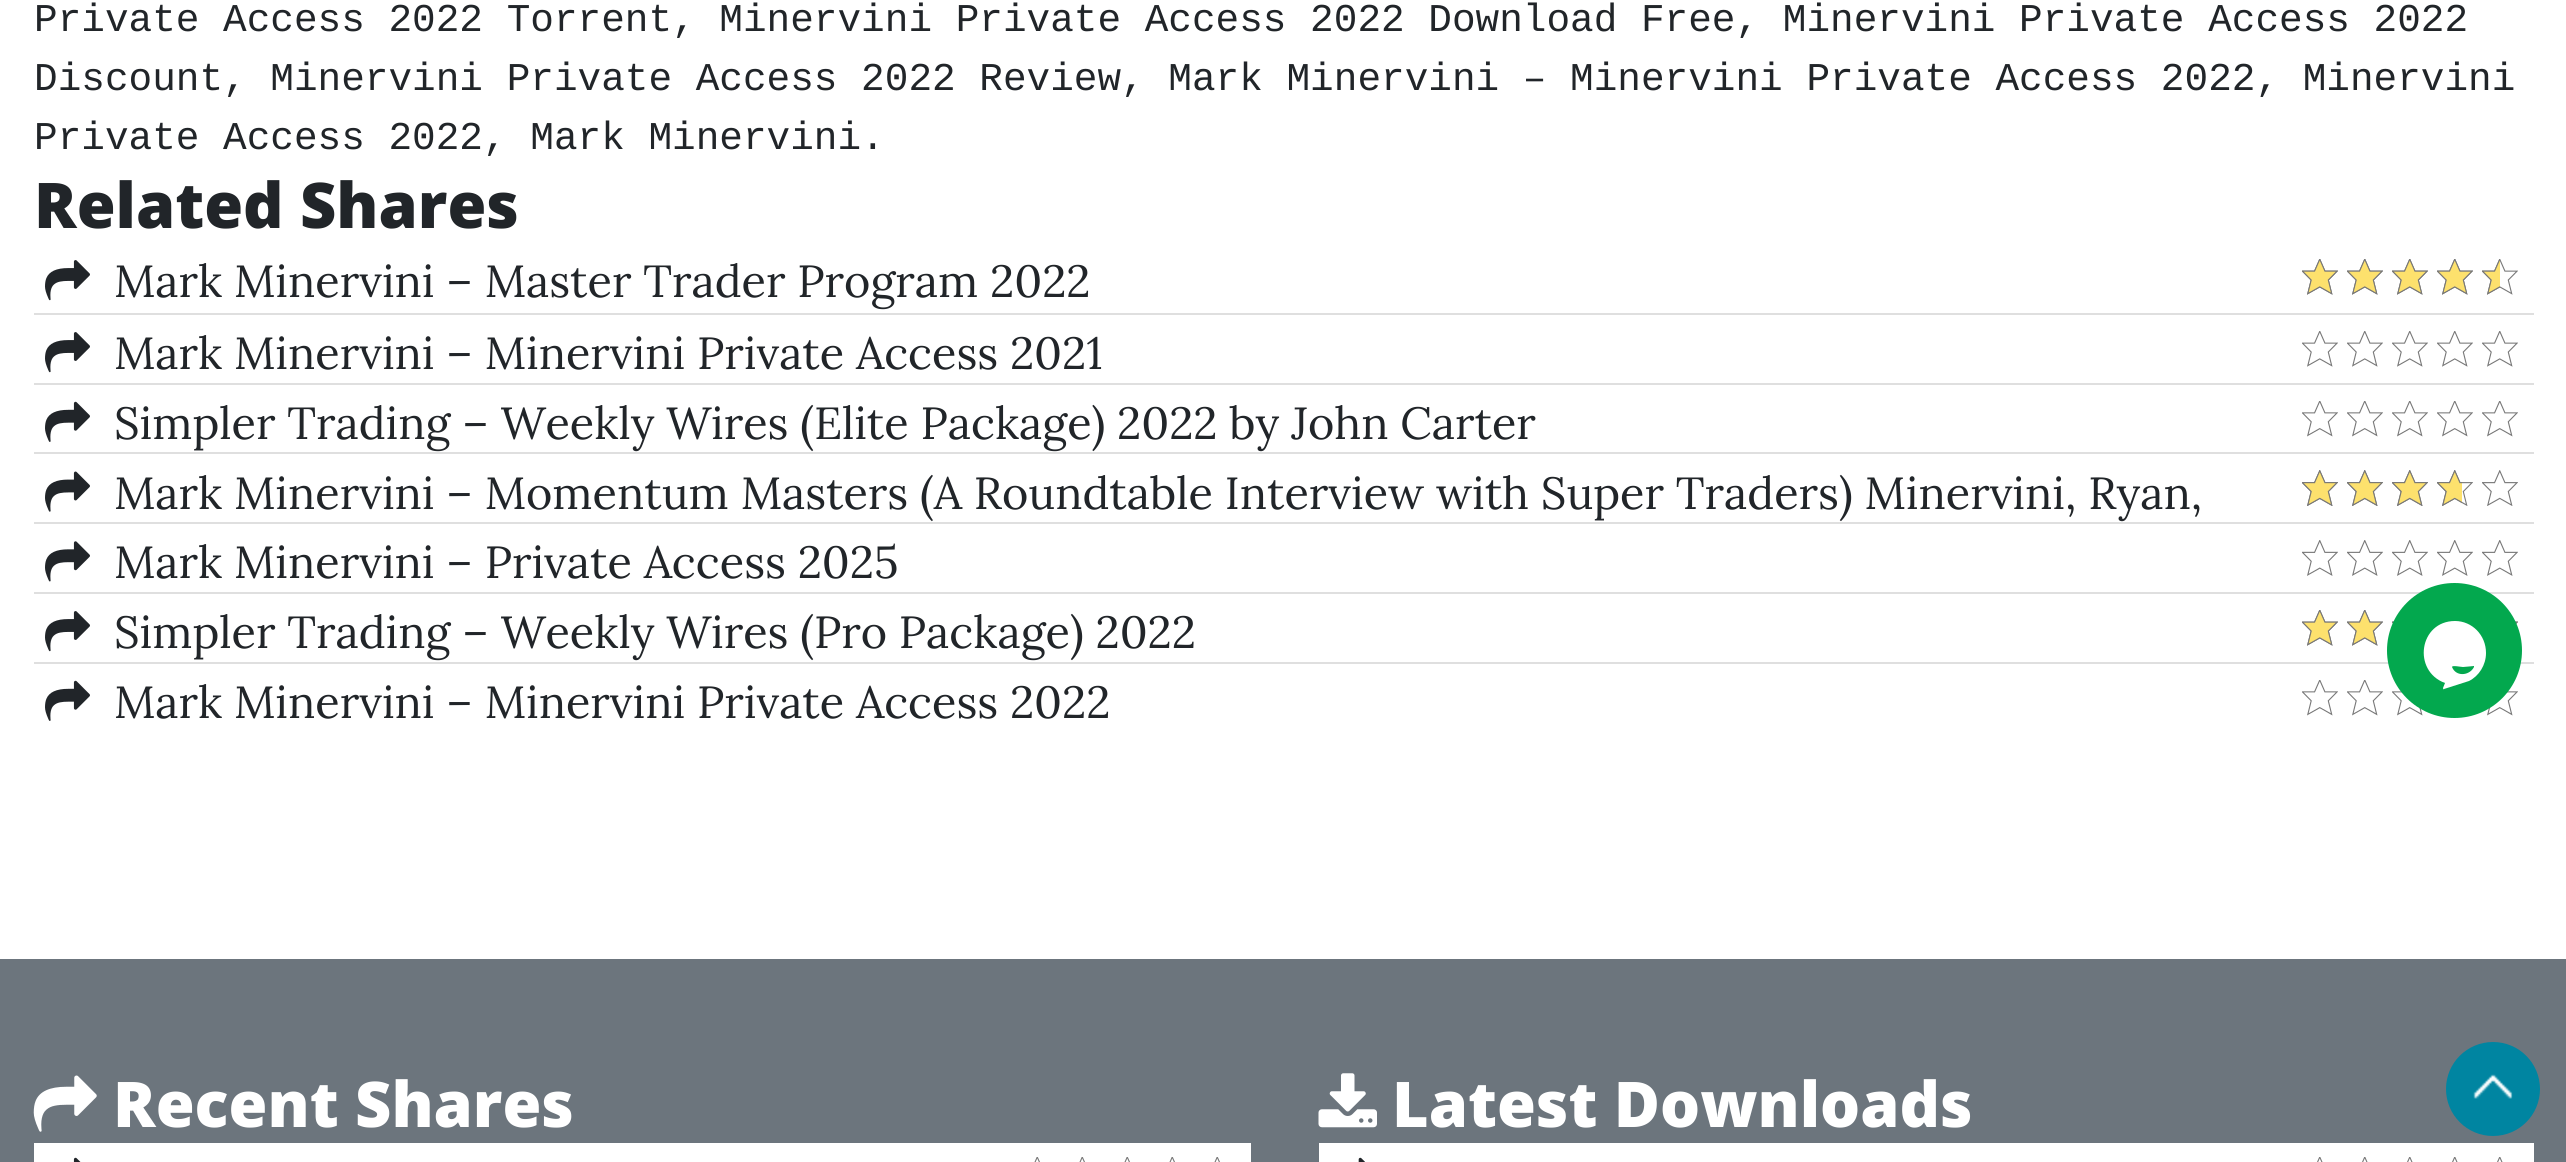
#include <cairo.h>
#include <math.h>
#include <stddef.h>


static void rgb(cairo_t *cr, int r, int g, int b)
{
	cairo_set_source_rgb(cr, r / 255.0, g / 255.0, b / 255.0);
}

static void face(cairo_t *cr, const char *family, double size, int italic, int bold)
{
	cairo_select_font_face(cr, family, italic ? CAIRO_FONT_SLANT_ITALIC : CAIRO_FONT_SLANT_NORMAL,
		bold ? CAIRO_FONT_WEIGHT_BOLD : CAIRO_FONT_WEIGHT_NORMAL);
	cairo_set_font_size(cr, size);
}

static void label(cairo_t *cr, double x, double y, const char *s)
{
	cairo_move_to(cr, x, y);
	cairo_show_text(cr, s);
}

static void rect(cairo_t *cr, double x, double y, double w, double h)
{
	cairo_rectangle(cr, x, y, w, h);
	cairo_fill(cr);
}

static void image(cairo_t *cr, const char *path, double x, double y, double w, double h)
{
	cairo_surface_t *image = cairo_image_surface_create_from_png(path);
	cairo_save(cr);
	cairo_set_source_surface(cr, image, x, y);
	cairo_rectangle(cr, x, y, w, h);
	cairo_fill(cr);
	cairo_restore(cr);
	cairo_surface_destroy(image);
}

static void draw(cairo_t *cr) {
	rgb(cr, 255, 255, 255);
	cairo_paint(cr);
	face(cr, "Liberation Mono", 39.38, 0, 0);
	rgb(cr, 33, 37, 41);
	label(cr, 34, 31, "Private Access 2022 Torrent, Minervini Private Access 2022 Download Free, Minervini Private Access 2022");
	label(cr, 34, 90, "Discount, Minervini Private Access 2022 Review, Mark Minervini – Minervini Private Access 2022, Minervini");
	label(cr, 34, 149, "Private Access 2022, Mark Minervini.");
	face(cr, "Open Sans ExtraBold", 63, 0, 0);
	label(cr, 34, 228, "Related Shares");
	image(cr, "image0.png", 45, 260, 45, 41);
	face(cr, "Lora", 45, 0, 0);
	label(cr, 114, 297, "Mark Minervini – Master Trader Program 2022");
	image(cr, "image1.png", 2302, 259, 36, 36);
	image(cr, "image1.png", 2347, 259, 36, 36);
	image(cr, "image1.png", 2392, 259, 36, 36);
	image(cr, "image1.png", 2437, 259, 36, 36);
	image(cr, "image1.png", 2482, 259, 36, 36);
	image(cr, "image2.png", 2302, 259, 36, 36);
	image(cr, "image2.png", 2347, 259, 36, 36);
	image(cr, "image2.png", 2392, 259, 36, 36);
	image(cr, "image2.png", 2437, 259, 36, 36);
	image(cr, "image3.png", 2482, 259, 18, 36);
	rgb(cr, 223, 223, 223);
	rect(cr, 34, 313, 2500, 2);
	image(cr, "image0.png", 45, 332, 45, 41);
	rgb(cr, 33, 37, 41);
	label(cr, 114, 369, "Mark Minervini – Minervini Private Access 2021");
	image(cr, "image1.png", 2302, 331, 36, 36);
	image(cr, "image1.png", 2347, 331, 36, 36);
	image(cr, "image1.png", 2392, 331, 36, 36);
	image(cr, "image1.png", 2437, 331, 36, 36);
	image(cr, "image1.png", 2482, 331, 36, 36);
	rgb(cr, 223, 223, 223);
	rect(cr, 34, 383, 2500, 2);
	image(cr, "image4.png", 45, 401, 45, 41);
	rgb(cr, 33, 37, 41);
	label(cr, 114, 439, "Simpler Trading – Weekly Wires (Elite Package) 2022 by John Carter");
	image(cr, "image5.png", 2302, 401, 36, 36);
	image(cr, "image5.png", 2347, 401, 36, 36);
	image(cr, "image5.png", 2392, 401, 36, 36);
	image(cr, "image5.png", 2437, 401, 36, 36);
	image(cr, "image5.png", 2482, 401, 36, 36);
	rgb(cr, 223, 223, 223);
	rect(cr, 34, 452, 2500, 2);
	image(cr, "image6.png", 45, 471, 45, 41);
	rgb(cr, 33, 37, 41);
	label(cr, 114, 509, "Mark Minervini – Momentum Masters (A Roundtable Interview with Super Traders) Minervini, Ryan,");
	image(cr, "image7.png", 2302, 470, 36, 36);
	image(cr, "image7.png", 2347, 470, 36, 36);
	image(cr, "image7.png", 2392, 470, 36, 36);
	image(cr, "image7.png", 2437, 470, 36, 36);
	image(cr, "image7.png", 2482, 470, 36, 36);
	image(cr, "image8.png", 2302, 470, 36, 36);
	image(cr, "image8.png", 2347, 470, 36, 36);
	image(cr, "image8.png", 2392, 470, 36, 36);
	image(cr, "image9.png", 2437, 470, 25, 36);
	rgb(cr, 223, 223, 223);
	rect(cr, 34, 522, 2500, 2);
	image(cr, "image10.png", 45, 541, 45, 41);
	rgb(cr, 33, 37, 41);
	label(cr, 114, 578, "Mark Minervini – Private Access 2025");
	image(cr, "image11.png", 2302, 540, 36, 36);
	image(cr, "image11.png", 2347, 540, 36, 36);
	image(cr, "image11.png", 2392, 540, 36, 36);
	image(cr, "image11.png", 2437, 540, 36, 36);
	image(cr, "image11.png", 2482, 540, 36, 36);
	rgb(cr, 223, 223, 223);
	rect(cr, 34, 592, 2500, 2);
	image(cr, "image0.png", 45, 611, 45, 41);
	rgb(cr, 33, 37, 41);
	label(cr, 114, 648, "Simpler Trading – Weekly Wires (Pro Package) 2022");
	image(cr, "image1.png", 2302, 610, 36, 36);
	image(cr, "image1.png", 2347, 610, 36, 36);
	image(cr, "image12.png", 2392, 621, 2, 3);
	image(cr, "image13.png", 2515, 621, 3, 3);
	image(cr, "image2.png", 2302, 610, 36, 36);
	image(cr, "image2.png", 2347, 610, 36, 36);
	image(cr, "image14.png", 2392, 621, 2, 3);
	image(cr, "image15.png", 2515, 621, 3, 3);
	rgb(cr, 223, 223, 223);
	rect(cr, 34, 662, 2500, 2);
	image(cr, "image4.png", 45, 680, 45, 41);
	rgb(cr, 33, 37, 41);
	label(cr, 114, 718, "Mark Minervini – Minervini Private Access 2022");
	image(cr, "image5.png", 2302, 680, 36, 36);
	image(cr, "image5.png", 2347, 680, 36, 36);
	image(cr, "image16.png", 2392, 691, 31, 25);
	image(cr, "image17.png", 2487, 691, 31, 25);
	rgb(cr, 3, 168, 78);
	cairo_arc(cr, 2454.5, 650.5, 67.5, 0, 2 * M_PI);
	cairo_fill(cr);
	rgb(cr, 255, 255, 255);
	cairo_set_fill_rule(cr, CAIRO_FILL_RULE_EVEN_ODD);
	cairo_new_path(cr);
	cairo_move_to(cr, 2455, 621);
	cairo_curve_to(cr, 2419, 621, 2412, 671, 2445, 683);
	cairo_line_to(cr, 2443, 688);
	cairo_curve_to(cr, 2443, 689, 2444, 690, 2444, 689);
	cairo_line_to(cr, 2469, 681);
	cairo_curve_to(cr, 2479, 676, 2486, 665, 2486, 653);
	cairo_curve_to(cr, 2486, 635, 2472, 621, 2455, 621);
	cairo_close_path(cr);
	cairo_move_to(cr, 2474, 667);
	cairo_curve_to(cr, 2470, 675, 2458, 677, 2453, 669);
	cairo_line_to(cr, 2452, 667);
	cairo_curve_to(cr, 2452, 665, 2461, 667, 2463, 667);
	cairo_curve_to(cr, 2465, 667, 2473, 666, 2474, 666);
	cairo_close_path(cr);
	cairo_fill(cr);
	rgb(cr, 108, 117, 125);
	rect(cr, 0, 959, 2566, 203);
	image(cr, "image18.png", 33, 1075, 64, 57);
	face(cr, "Open Sans ExtraBold", 63, 0, 0);
	rgb(cr, 255, 255, 255);
	label(cr, 113, 1127, "Recent Shares");
	rect(cr, 34, 1143, 1217, 19);
	image(cr, "image19.png", 73, 1157, 8, 5);
	image(cr, "image20.png", 1034, 1157, 6, 5);
	image(cr, "image20.png", 1079, 1157, 6, 5);
	image(cr, "image20.png", 1124, 1157, 6, 5);
	image(cr, "image20.png", 1169, 1157, 6, 5);
	image(cr, "image20.png", 1214, 1157, 6, 5);
	image(cr, "image21.png", 1318, 1073, 59, 55);
	label(cr, 1392, 1127, "Latest Downloads");
	rect(cr, 1319, 1143, 1215, 19);
	image(cr, "image22.png", 1358, 1157, 7, 5);
	image(cr, "image23.png", 2317, 1157, 6, 5);
	image(cr, "image23.png", 2362, 1157, 6, 5);
	image(cr, "image23.png", 2407, 1157, 6, 5);
	image(cr, "image23.png", 2452, 1157, 6, 5);
	image(cr, "image23.png", 2497, 1157, 6, 5);
	rgb(cr, 0, 133, 161);
	cairo_arc(cr, 2493, 1089, 47, 0, 2 * M_PI);
	cairo_fill(cr);
	image(cr, "image24.png", 2473, 1074, 40, 25);
}

int main(void) {
	cairo_surface_t *surface = cairo_image_surface_create(CAIRO_FORMAT_RGB24, 2566, 1162);
	cairo_t *cr = cairo_create(surface);
	cairo_font_options_t *options = cairo_font_options_create();
	cairo_font_options_set_hint_metrics(options, CAIRO_HINT_METRICS_OFF);
	cairo_font_options_set_hint_style(options, CAIRO_HINT_STYLE_NONE);
	cairo_set_font_options(cr, options);
	cairo_set_miter_limit(cr, 4);
	draw(cr);
	cairo_surface_write_to_png(surface, "render.png");
	cairo_font_options_destroy(options);
	cairo_destroy(cr);
	cairo_surface_destroy(surface);
	return 0;
}
